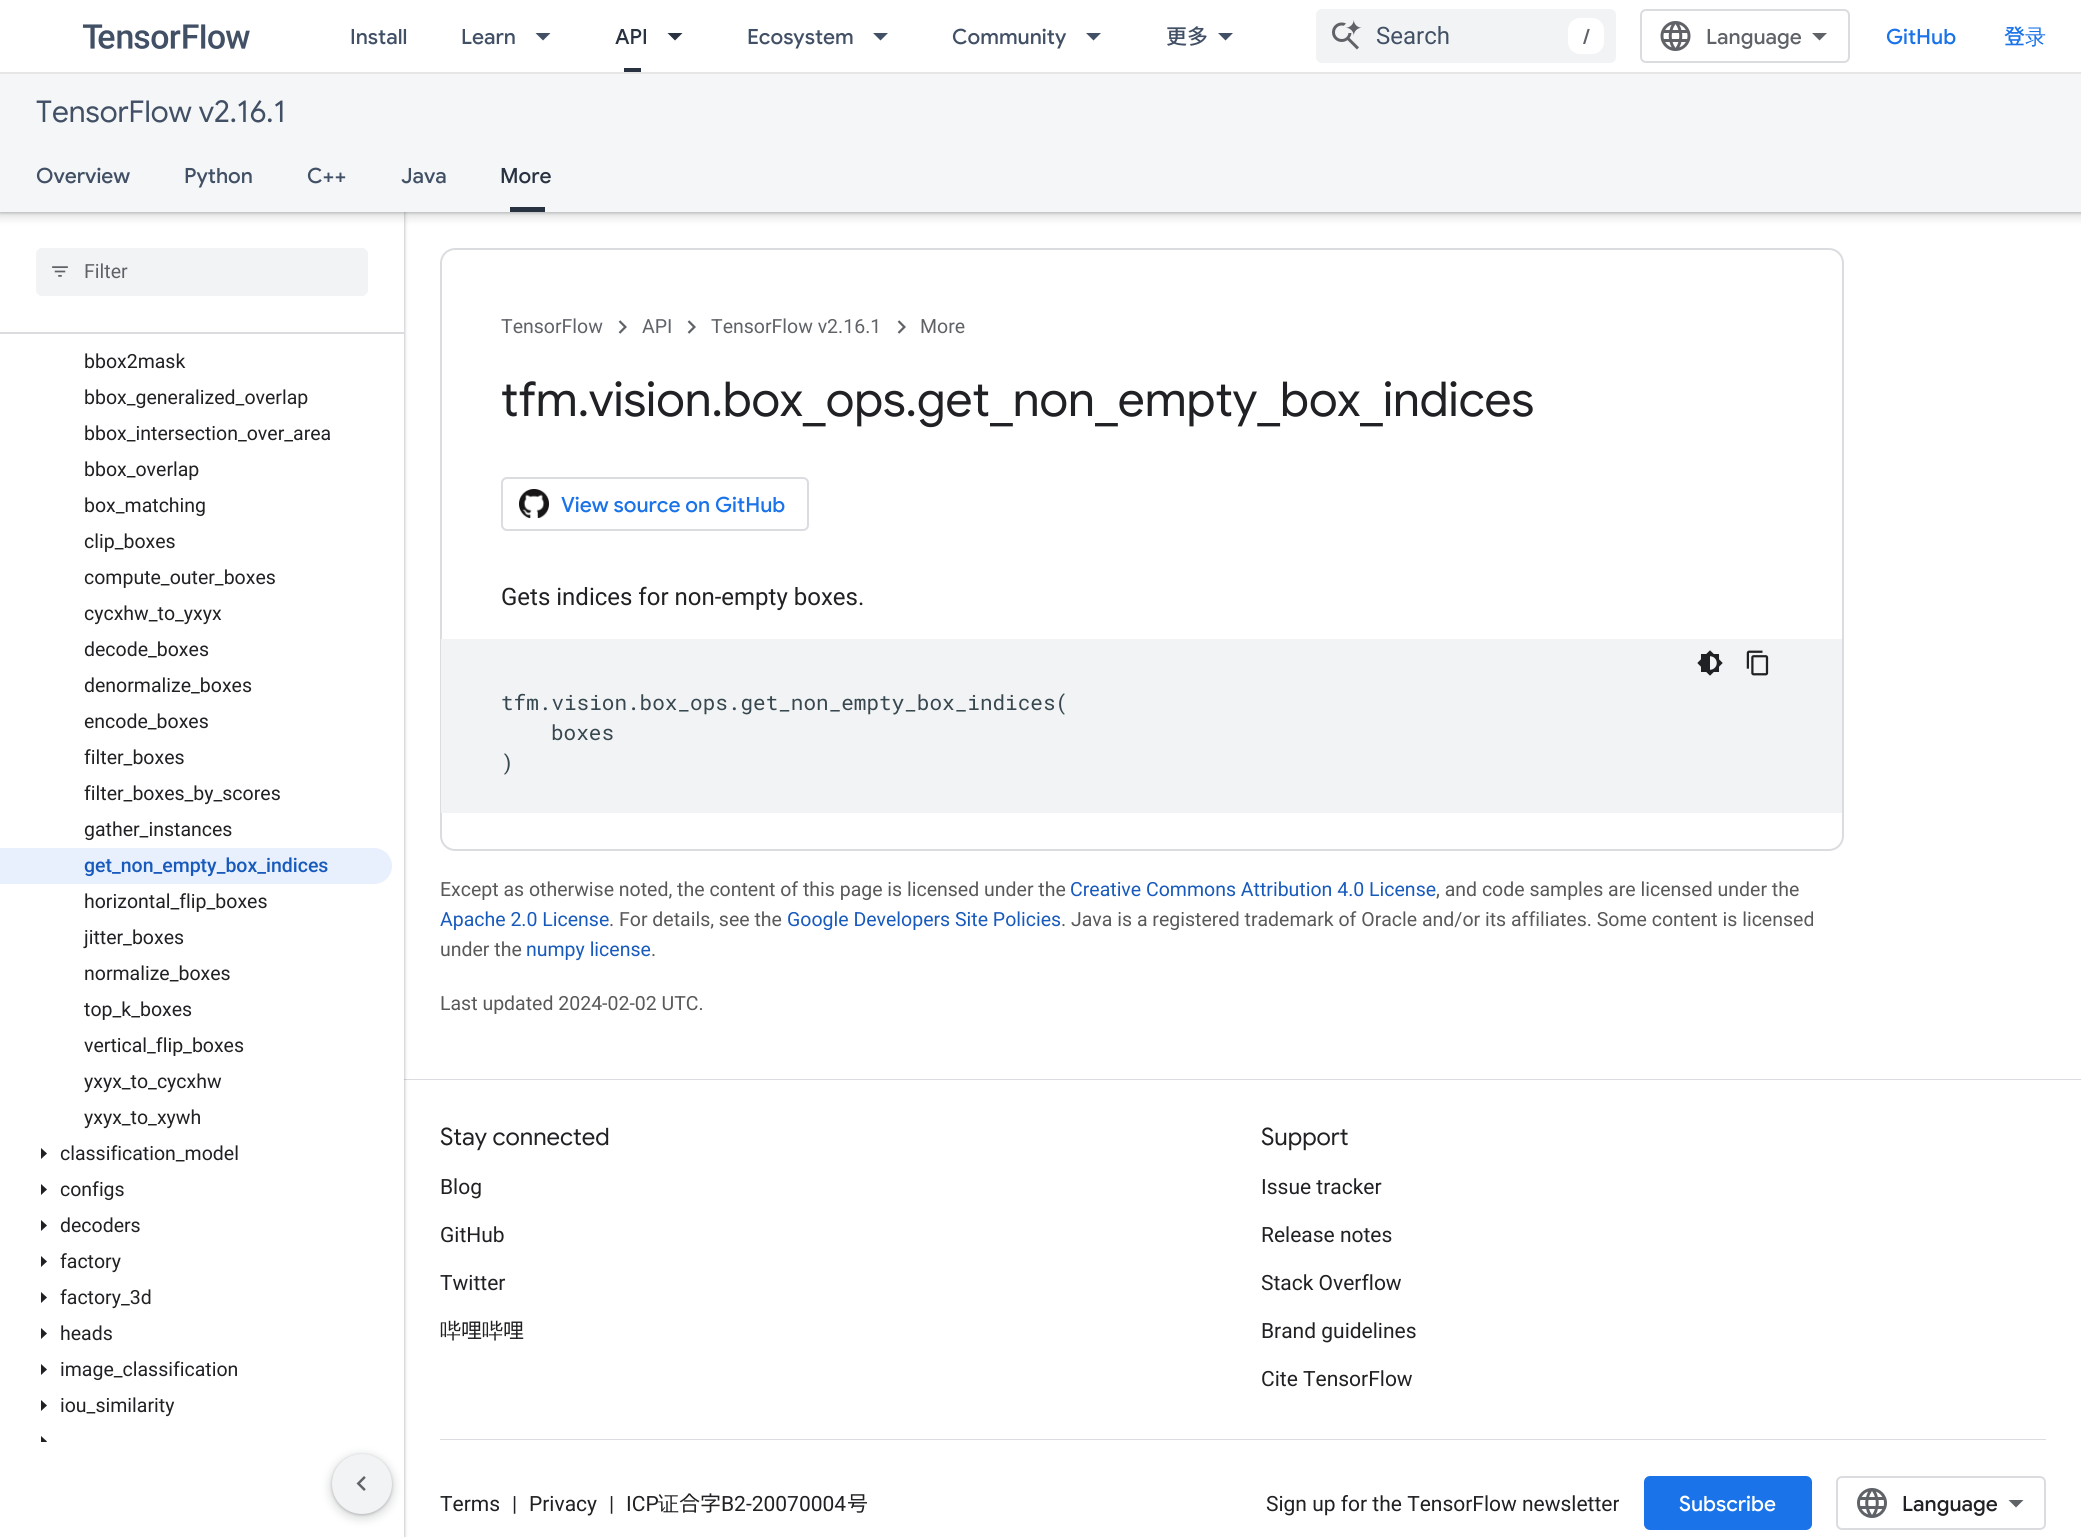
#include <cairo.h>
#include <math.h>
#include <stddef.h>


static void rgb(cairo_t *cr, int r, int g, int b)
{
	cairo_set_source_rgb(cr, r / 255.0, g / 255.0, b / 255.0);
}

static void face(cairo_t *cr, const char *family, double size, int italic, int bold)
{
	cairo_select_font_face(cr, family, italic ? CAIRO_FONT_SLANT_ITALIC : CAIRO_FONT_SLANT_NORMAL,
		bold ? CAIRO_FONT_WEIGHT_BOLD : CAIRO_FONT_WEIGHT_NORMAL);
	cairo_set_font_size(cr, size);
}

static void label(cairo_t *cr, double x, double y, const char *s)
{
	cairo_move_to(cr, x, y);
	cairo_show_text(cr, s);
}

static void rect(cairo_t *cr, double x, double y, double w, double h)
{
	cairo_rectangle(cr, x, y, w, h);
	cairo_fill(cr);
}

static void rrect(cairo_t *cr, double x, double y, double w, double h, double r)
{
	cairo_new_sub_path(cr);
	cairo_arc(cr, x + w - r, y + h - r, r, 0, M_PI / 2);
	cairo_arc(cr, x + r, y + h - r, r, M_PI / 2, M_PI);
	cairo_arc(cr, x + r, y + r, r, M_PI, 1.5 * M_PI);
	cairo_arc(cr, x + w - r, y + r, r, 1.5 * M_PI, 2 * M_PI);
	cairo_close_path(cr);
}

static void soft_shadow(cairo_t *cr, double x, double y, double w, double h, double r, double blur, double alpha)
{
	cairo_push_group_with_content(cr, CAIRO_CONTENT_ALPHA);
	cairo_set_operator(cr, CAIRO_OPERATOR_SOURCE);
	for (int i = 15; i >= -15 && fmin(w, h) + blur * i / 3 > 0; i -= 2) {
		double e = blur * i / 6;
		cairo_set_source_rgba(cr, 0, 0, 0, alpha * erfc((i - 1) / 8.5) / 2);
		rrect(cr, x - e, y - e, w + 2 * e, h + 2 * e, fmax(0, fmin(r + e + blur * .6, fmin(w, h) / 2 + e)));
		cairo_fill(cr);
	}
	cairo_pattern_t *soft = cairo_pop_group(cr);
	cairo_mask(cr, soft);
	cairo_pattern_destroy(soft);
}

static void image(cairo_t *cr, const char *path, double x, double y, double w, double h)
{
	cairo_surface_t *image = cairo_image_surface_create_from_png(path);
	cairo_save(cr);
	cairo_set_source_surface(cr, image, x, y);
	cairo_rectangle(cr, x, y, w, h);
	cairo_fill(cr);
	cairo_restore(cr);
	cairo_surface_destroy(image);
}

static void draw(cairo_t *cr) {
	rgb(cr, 255, 255, 255);
	cairo_paint(cr);
	rgb(cr, 218, 220, 224);
	rect(cr, 404, 1079, 1677, 1);
	rgb(cr, 60, 64, 67);
	soft_shadow(cr, -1, 0, 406, 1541, 0, 2, 0.15);
	soft_shadow(cr, 0, 2, 404, 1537, 0, 1.5, 0.3);
	rgb(cr, 255, 255, 255);
	rect(cr, 0, 334, 404, 1108);
	rect(cr, 0, 212, 404, 120);
	rgb(cr, 60, 64, 67);
	soft_shadow(cr, -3, 56, 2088, 162, 0, 4.5, 0.15);
	soft_shadow(cr, 0, 57, 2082, 156, 0, 1.5, 0.3);
	rgb(cr, 255, 255, 255);
	rect(cr, 0, 0, 2081, 72);
	rgb(cr, 230, 230, 230);
	rect(cr, 0, 72, 2081, 2);
	image(cr, "image0.png", 82, 24, 168, 25);
	face(cr, "Google Sans Medium", 21, 0, 0);
	rgb(cr, 66, 80, 102);
	label(cr, 350, 44, "Install");
	label(cr, 461, 44, "Learn");
	cairo_new_path(cr);
	cairo_move_to(cr, 535.5, 33);
	cairo_line_to(cr, 550.5, 33);
	cairo_line_to(cr, 543, 40.5);
	cairo_close_path(cr);
	cairo_fill(cr);
	rgb(cr, 41, 50, 65);
	label(cr, 615, 44, "API");
	rect(cr, 624, 68, 17, 4);
	cairo_new_path(cr);
	cairo_move_to(cr, 667.5, 33);
	cairo_line_to(cr, 682.5, 33);
	cairo_line_to(cr, 675, 40.5);
	cairo_close_path(cr);
	cairo_fill(cr);
	rgb(cr, 66, 80, 102);
	label(cr, 747, 44, "Ecosystem");
	cairo_new_path(cr);
	cairo_move_to(cr, 873, 33);
	cairo_line_to(cr, 888, 33);
	cairo_line_to(cr, 880.5, 40.5);
	cairo_close_path(cr);
	cairo_fill(cr);
	label(cr, 952, 44, "Community");
	cairo_new_path(cr);
	cairo_move_to(cr, 1086, 33);
	cairo_line_to(cr, 1101, 33);
	cairo_line_to(cr, 1093.5, 40.5);
	cairo_close_path(cr);
	cairo_fill(cr);
	face(cr, "Noto Sans JP Medium", 21, 0, 0);
	label(cr, 1166, 44, "更多");
	cairo_new_path(cr);
	cairo_move_to(cr, 1218, 33);
	cairo_line_to(cr, 1233, 33);
	cairo_line_to(cr, 1225.5, 40.5);
	cairo_close_path(cr);
	cairo_fill(cr);
	rgb(cr, 241, 243, 244);
	rrect(cr, 1316, 9, 300, 54, 6);
	cairo_fill(cr);
	image(cr, "image1.png", 1332, 20, 30, 30);
	face(cr, "Roboto", 24, 0, 0);
	rgb(cr, 66, 80, 102);
	label(cr, 1376, 44, "Search");
	rgb(cr, 255, 255, 255);
	rrect(cr, 1568, 18, 36, 36, 12);
	cairo_fill(cr);
	face(cr, "Google Sans Medium", 21, 0, 0);
	rgb(cr, 95, 99, 104);
	label(cr, 1583, 44, "/");
	rrect(cr, 1641, 10, 208, 52, 5);
	rgb(cr, 218, 220, 224);
	cairo_stroke(cr);
	image(cr, "image2.png", 1660, 21, 31, 30);
	rgb(cr, 95, 99, 104);
	label(cr, 1706, 44, "Language");
	cairo_new_path(cr);
	cairo_move_to(cr, 1819.5, 40.5);
	cairo_line_to(cr, 1812, 33);
	cairo_line_to(cr, 1827, 33);
	cairo_close_path(cr);
	cairo_fill(cr);
	rgb(cr, 26, 115, 232);
	label(cr, 1886, 44, "GitHub");
	face(cr, "Noto Sans JP Medium", 21, 0, 0);
	label(cr, 2004, 44, "登");
	face(cr, "WenQuanYi Zen Hei Medium", 21, 0, 0);
	label(cr, 2025, 44, "录");
	rgb(cr, 245, 246, 247);
	rect(cr, 0, 74, 2081, 138);
	face(cr, "Google Sans", 30, 0, 0);
	rgb(cr, 66, 80, 102);
	label(cr, 36, 122, "TensorFlow v2.16.1");
	face(cr, "Google Sans Medium", 21, 0, 0);
	label(cr, 36, 183, "Overview");
	label(cr, 184, 183, "Python");
	label(cr, 307, 183, "C++");
	label(cr, 401, 183, "Java");
	rgb(cr, 41, 50, 65);
	label(cr, 500, 183, "More");
	rect(cr, 510, 207, 35, 5);
	rgb(cr, 218, 220, 224);
	rect(cr, 0, 332, 404, 2);
	rgb(cr, 241, 243, 244);
	rrect(cr, 36, 248, 332, 48, 6);
	cairo_fill(cr);
	image(cr, "image3.png", 52, 266, 16, 11);
	face(cr, "Roboto", 19.5, 0, 0);
	rgb(cr, 95, 99, 104);
	label(cr, 84, 278, "Filter");
	rgb(cr, 32, 33, 36);
	label(cr, 84, 368, "bbox2mask");
	label(cr, 84, 404, "bbox_generalized_overlap");
	label(cr, 84, 440, "bbox_intersection_over_area");
	label(cr, 84, 476, "bbox_overlap");
	label(cr, 84, 512, "box_matching");
	label(cr, 84, 548, "clip_boxes");
	label(cr, 84, 584, "compute_outer_boxes");
	label(cr, 84, 620, "cycxhw_to_yxyx");
	label(cr, 84, 656, "decode_boxes");
	label(cr, 84, 692, "denormalize_boxes");
	label(cr, 84, 728, "encode_boxes");
	label(cr, 84, 764, "filter_boxes");
	label(cr, 84, 800, "filter_boxes_by_scores");
	label(cr, 84, 836, "gather_instances");
	rgb(cr, 232, 240, 254);
	cairo_new_path(cr);
	cairo_move_to(cr, 0, 848);
	cairo_line_to(cr, 374, 848);
	cairo_curve_to(cr, 384, 848, 392, 856, 392, 866);
	cairo_curve_to(cr, 392, 876, 384, 884, 374, 884);
	cairo_line_to(cr, 0, 884);
	cairo_close_path(cr);
	cairo_fill(cr);
	face(cr, "Roboto Medium", 19.5, 0, 0);
	rgb(cr, 24, 90, 188);
	label(cr, 84, 872, "get_non_empty_box_indices");
	face(cr, "Roboto", 19.5, 0, 0);
	rgb(cr, 32, 33, 36);
	label(cr, 84, 908, "horizontal_flip_boxes");
	label(cr, 84, 944, "jitter_boxes");
	label(cr, 84, 980, "normalize_boxes");
	label(cr, 84, 1016, "top_k_boxes");
	label(cr, 84, 1052, "vertical_flip_boxes");
	label(cr, 84, 1088, "yxyx_to_cycxhw");
	label(cr, 84, 1124, "yxyx_to_xywh");
	cairo_new_path(cr);
	cairo_move_to(cr, 41, 1159);
	cairo_line_to(cr, 41, 1148);
	cairo_line_to(cr, 47, 1153.5);
	cairo_close_path(cr);
	cairo_fill(cr);
	label(cr, 60, 1160, "classification_model");
	cairo_new_path(cr);
	cairo_move_to(cr, 41, 1195);
	cairo_line_to(cr, 41, 1184);
	cairo_line_to(cr, 47, 1189.5);
	cairo_close_path(cr);
	cairo_fill(cr);
	label(cr, 60, 1196, "configs");
	cairo_new_path(cr);
	cairo_move_to(cr, 41, 1231);
	cairo_line_to(cr, 41, 1220);
	cairo_line_to(cr, 47, 1225.5);
	cairo_close_path(cr);
	cairo_fill(cr);
	label(cr, 60, 1232, "decoders");
	cairo_new_path(cr);
	cairo_move_to(cr, 41, 1267);
	cairo_line_to(cr, 41, 1256);
	cairo_line_to(cr, 47, 1261.5);
	cairo_close_path(cr);
	cairo_fill(cr);
	label(cr, 60, 1268, "factory");
	cairo_new_path(cr);
	cairo_move_to(cr, 41, 1303);
	cairo_line_to(cr, 41, 1292);
	cairo_line_to(cr, 47, 1297.5);
	cairo_close_path(cr);
	cairo_fill(cr);
	label(cr, 60, 1304, "factory_3d");
	cairo_new_path(cr);
	cairo_move_to(cr, 41, 1339);
	cairo_line_to(cr, 41, 1328);
	cairo_line_to(cr, 47, 1333.5);
	cairo_close_path(cr);
	cairo_fill(cr);
	label(cr, 60, 1340, "heads");
	cairo_new_path(cr);
	cairo_move_to(cr, 41, 1375);
	cairo_line_to(cr, 41, 1364);
	cairo_line_to(cr, 47, 1369.5);
	cairo_close_path(cr);
	cairo_fill(cr);
	label(cr, 60, 1376, "image_classification");
	cairo_new_path(cr);
	cairo_move_to(cr, 41, 1411);
	cairo_line_to(cr, 41, 1400);
	cairo_line_to(cr, 47, 1405.5);
	cairo_close_path(cr);
	cairo_move_to(cr, 41, 1447);
	cairo_line_to(cr, 41, 1436);
	cairo_line_to(cr, 47, 1441.5);
	cairo_close_path(cr);
	cairo_fill(cr);
	label(cr, 60, 1412, "iou_similarity");
	rgb(cr, 255, 255, 255);
	rect(cr, 0, 1442, 404, 95);
	rgb(cr, 60, 64, 67);
	soft_shadow(cr, 329, 1454, 66, 66, 33, 4.5, 0.15);
	soft_shadow(cr, 332, 1455, 60, 60, 30, 1.5, 0.3);
	rgb(cr, 241, 243, 244);
	cairo_arc(cr, 362, 1484, 30, 0, 2 * M_PI);
	cairo_fill(cr);
	image(cr, "image4.png", 356, 1476, 10, 15);
	rrect(cr, 441, 249, 1402, 601, 14);
	rgb(cr, 218, 220, 224);
	cairo_stroke(cr);
	rgb(cr, 95, 99, 104);
	label(cr, 501, 333, "TensorFlow");
	image(cr, "image5.png", 618, 320, 9, 14);
	label(cr, 642, 333, "API");
	image(cr, "image5.png", 687, 320, 9, 14);
	label(cr, 711, 333, "TensorFlow v2.16.1");
	image(cr, "image5.png", 897, 320, 9, 14);
	label(cr, 920, 333, "More");
	face(cr, "Google Sans", 48, 0, 0);
	rgb(cr, 32, 33, 36);
	label(cr, 501, 416, "tfm.vision.box_ops.get_non_empty_box_indices");
	rrect(cr, 502, 478, 306, 52, 5);
	rgb(cr, 218, 220, 224);
	cairo_stroke(cr);
	image(cr, "image6.png", 519, 489, 30, 30);
	face(cr, "Google Sans Medium", 21, 0, 0);
	rgb(cr, 26, 115, 232);
	label(cr, 561, 512, "View source on GitHub");
	face(cr, "Roboto", 24, 0, 0);
	rgb(cr, 32, 33, 36);
	label(cr, 501, 605, "Gets indices for non-empty boxes.");
	rgb(cr, 241, 243, 244);
	rect(cr, 441, 639, 1401, 174);
	image(cr, "image7.png", 1697, 650, 26, 26);
	image(cr, "image8.png", 1746, 650, 23, 26);
	face(cr, "Roboto Mono", 21, 0, 0);
	rgb(cr, 55, 71, 79);
	label(cr, 501, 710, "tfm.vision.box_ops.get_non_empty_box_indices(");
	label(cr, 551, 740, "boxes");
	label(cr, 501, 770, ")");
	face(cr, "Roboto", 19.5, 0, 0);
	rgb(cr, 89, 89, 89);
	label(cr, 440, 896, "Except as otherwise noted, the content of this page is licensed under the");
	rgb(cr, 24, 90, 188);
	label(cr, 1070, 896, "Creative Commons Attribution 4.0 License");
	rgb(cr, 89, 89, 89);
	label(cr, 1436, 896, ", and code samples are licensed under the");
	rgb(cr, 24, 90, 188);
	label(cr, 440, 926, "Apache 2.0 License");
	rgb(cr, 89, 89, 89);
	label(cr, 609, 926, ". For details, see the");
	rgb(cr, 24, 90, 188);
	label(cr, 787, 926, "Google Developers Site Policies");
	rgb(cr, 89, 89, 89);
	label(cr, 1061, 926, ". Java is a registered trademark of Oracle and/or its affiliates. Some content is licensed");
	label(cr, 440, 956, "under the");
	rgb(cr, 24, 90, 188);
	label(cr, 526, 956, "numpy license");
	rgb(cr, 89, 89, 89);
	label(cr, 651, 956, ".");
	label(cr, 440, 1010, "Last updated 2024-02-02 UTC.");
	rgb(cr, 218, 220, 224);
	rect(cr, 440, 1439, 1606, 1);
	face(cr, "Google Sans", 24, 0, 0);
	rgb(cr, 32, 33, 36);
	label(cr, 440, 1145, "Stay connected");
	face(cr, "Roboto", 21, 0, 0);
	label(cr, 440, 1194, "Blog");
	label(cr, 440, 1242, "GitHub");
	label(cr, 440, 1290, "Twitter");
	face(cr, "WenQuanYi Zen Hei Medium", 21, 0, 0);
	label(cr, 440, 1338, "哔");
	face(cr, "Noto Sans JP", 21, 0, 0);
	label(cr, 461, 1338, "哩");
	face(cr, "WenQuanYi Zen Hei Medium", 21, 0, 0);
	label(cr, 482, 1338, "哔");
	face(cr, "Noto Sans JP", 21, 0, 0);
	label(cr, 503, 1338, "哩");
	face(cr, "Google Sans", 24, 0, 0);
	label(cr, 1261, 1145, "Support");
	face(cr, "Roboto", 21, 0, 0);
	label(cr, 1261, 1194, "Issue tracker");
	label(cr, 1261, 1242, "Release notes");
	label(cr, 1261, 1290, "Stack Overflow");
	label(cr, 1261, 1338, "Brand guidelines");
	label(cr, 1261, 1386, "Cite TensorFlow");
	label(cr, 440, 1511, "Terms");
	label(cr, 512, 1511, "|");
	label(cr, 529, 1511, "Privacy");
	label(cr, 609, 1511, "|");
	label(cr, 626, 1511, "ICP");
	face(cr, "WenQuanYi Zen Hei Medium", 21, 0, 0);
	label(cr, 658, 1511, "证");
	face(cr, "Noto Sans JP", 21, 0, 0);
	label(cr, 679, 1511, "合字");
	face(cr, "Roboto", 21, 0, 0);
	label(cr, 721, 1511, "B2-20070004");
	face(cr, "Noto Sans JP", 21, 0, 0);
	label(cr, 847, 1511, "号");
	face(cr, "Roboto", 21, 0, 0);
	label(cr, 1266, 1511, "Sign up for the TensorFlow newsletter");
	rgb(cr, 26, 115, 232);
	rrect(cr, 1644, 1476, 168, 54, 6);
	cairo_fill(cr);
	face(cr, "Google Sans Medium", 21, 0, 0);
	rgb(cr, 255, 255, 255);
	label(cr, 1679, 1511, "Subscribe");
	rrect(cr, 1837, 1477, 208, 52, 5);
	rgb(cr, 218, 220, 224);
	cairo_stroke(cr);
	image(cr, "image9.png", 1857, 1488, 30, 30);
	rgb(cr, 32, 33, 36);
	label(cr, 1902, 1511, "Language");
	rgb(cr, 95, 99, 104);
	cairo_new_path(cr);
	cairo_move_to(cr, 2016, 1507.5);
	cairo_line_to(cr, 2008.5, 1500);
	cairo_line_to(cr, 2023.5, 1500);
	cairo_close_path(cr);
	cairo_fill(cr);
}

int main(void) {
	cairo_surface_t *surface = cairo_image_surface_create(CAIRO_FORMAT_RGB24, 2081, 1537);
	cairo_t *cr = cairo_create(surface);
	cairo_font_options_t *options = cairo_font_options_create();
	cairo_font_options_set_hint_metrics(options, CAIRO_HINT_METRICS_OFF);
	cairo_font_options_set_hint_style(options, CAIRO_HINT_STYLE_NONE);
	cairo_set_font_options(cr, options);
	cairo_set_miter_limit(cr, 4);
	draw(cr);
	cairo_surface_write_to_png(surface, "render.png");
	cairo_font_options_destroy(options);
	cairo_destroy(cr);
	cairo_surface_destroy(surface);
	return 0;
}
